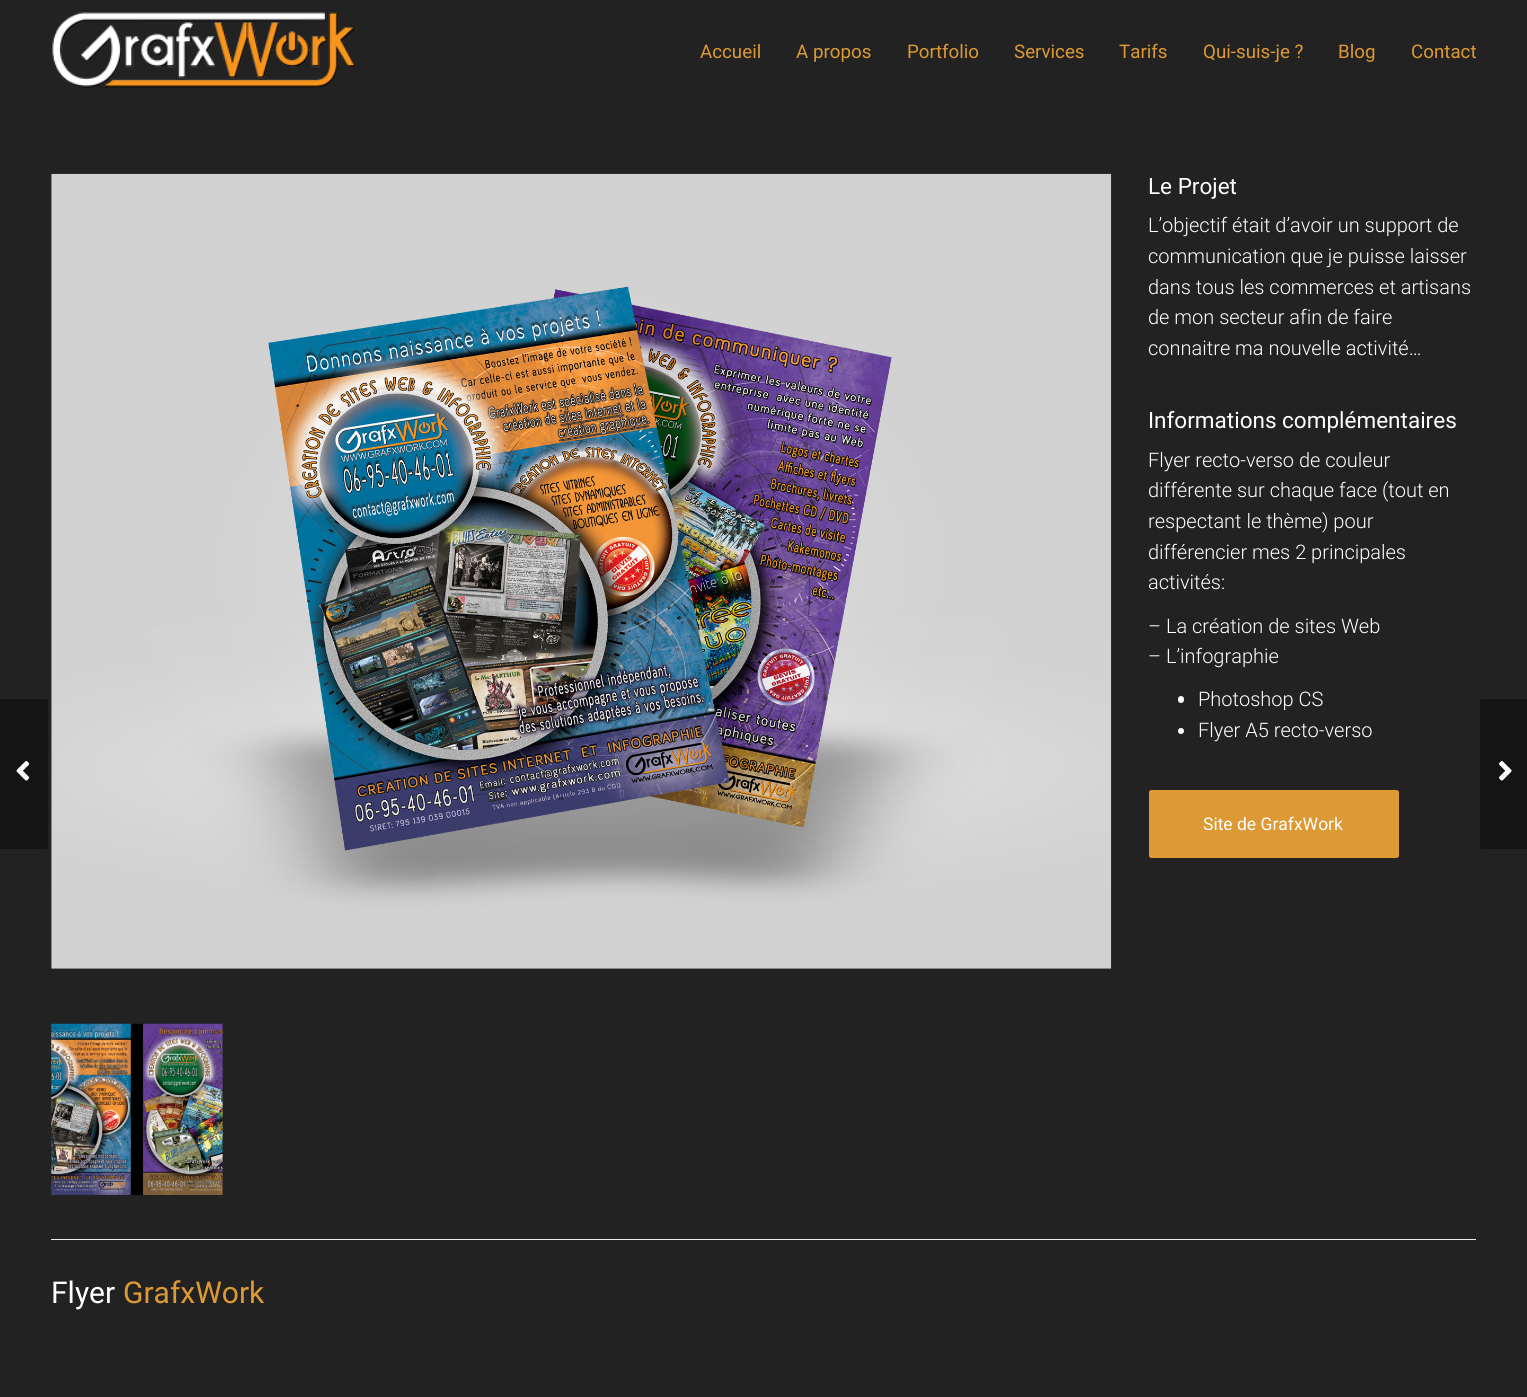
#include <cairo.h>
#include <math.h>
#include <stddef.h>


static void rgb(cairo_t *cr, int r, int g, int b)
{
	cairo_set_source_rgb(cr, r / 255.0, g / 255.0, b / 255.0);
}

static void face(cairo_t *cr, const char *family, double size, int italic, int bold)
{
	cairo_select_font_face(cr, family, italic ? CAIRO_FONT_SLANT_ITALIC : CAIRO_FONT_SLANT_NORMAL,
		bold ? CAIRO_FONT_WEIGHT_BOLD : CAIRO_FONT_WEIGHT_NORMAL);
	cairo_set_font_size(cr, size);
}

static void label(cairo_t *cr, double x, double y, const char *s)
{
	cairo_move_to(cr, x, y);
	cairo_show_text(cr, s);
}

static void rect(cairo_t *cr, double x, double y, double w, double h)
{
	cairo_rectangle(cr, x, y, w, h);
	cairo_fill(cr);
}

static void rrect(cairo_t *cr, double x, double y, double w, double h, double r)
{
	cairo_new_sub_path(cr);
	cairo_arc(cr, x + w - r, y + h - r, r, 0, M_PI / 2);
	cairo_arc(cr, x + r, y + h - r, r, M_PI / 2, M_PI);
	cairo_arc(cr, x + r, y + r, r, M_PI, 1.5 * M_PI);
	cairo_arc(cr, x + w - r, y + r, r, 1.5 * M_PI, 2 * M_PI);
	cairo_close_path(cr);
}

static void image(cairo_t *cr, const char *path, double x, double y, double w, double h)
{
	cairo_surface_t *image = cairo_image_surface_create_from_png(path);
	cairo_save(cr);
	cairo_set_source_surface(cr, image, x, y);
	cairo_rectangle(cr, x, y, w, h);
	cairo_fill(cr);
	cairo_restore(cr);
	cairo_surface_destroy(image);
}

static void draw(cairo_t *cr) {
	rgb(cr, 34, 34, 34);
	cairo_paint(cr);
	image(cr, "image0.png", 52, 12, 303, 76);
	face(cr, "Roboto", 18.75, 0, 0);
	rgb(cr, 221, 153, 51);
	label(cr, 700, 58, "Accueil");
	label(cr, 796, 58, "A propos");
	label(cr, 907, 58, "Portfolio");
	label(cr, 1014, 58, "Services");
	label(cr, 1119, 58, "Tarifs");
	label(cr, 1203, 58, "Qui-suis-je ?");
	label(cr, 1338, 58, "Blog");
	label(cr, 1411, 58, "Contact");
	rgb(cr, 20, 20, 20);
	rrect(cr, -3, 699, 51, 150, 2.5);
	cairo_fill(cr);
	image(cr, "image1.png", 16, 761, 14, 20);
	image(cr, "image2.png", 51, 173, 1061, 796);
	image(cr, "image3.png", 51, 1023, 172, 172);
	face(cr, "Roboto", 22.5, 0, 0);
	rgb(cr, 255, 255, 255);
	label(cr, 1148, 194, "Le Projet");
	face(cr, "Roboto Light", 20, 0, 0);
	label(cr, 1148, 232, "L’objectif était d’avoir un support de");
	label(cr, 1148, 263, "communication que je puisse laisser");
	label(cr, 1148, 294, "dans tous les commerces et artisans");
	label(cr, 1148, 324, "de mon secteur afin de faire");
	label(cr, 1148, 355, "connaitre ma nouvelle activité…");
	face(cr, "Roboto", 22.5, 0, 0);
	label(cr, 1148, 428, "Informations complémentaires");
	face(cr, "Roboto Light", 20, 0, 0);
	label(cr, 1148, 467, "Flyer recto-verso de couleur");
	label(cr, 1148, 497, "différente sur chaque face (tout en");
	label(cr, 1148, 528, "respectant le thème) pour");
	label(cr, 1148, 559, "différencier mes 2 principales");
	label(cr, 1148, 589, "activités:");
	label(cr, 1148, 633, "– La création de sites Web");
	label(cr, 1148, 663, "– L’infographie");
	rrect(cr, 1178, 696, 6, 7, 3);
	cairo_fill(cr);
	label(cr, 1198, 706, "Photoshop CS");
	cairo_new_path(cr);
	cairo_arc(cr, 1181, 731, 3, 0, 2 * M_PI);
	cairo_fill(cr);
	label(cr, 1198, 737, "Flyer A5 recto-verso");
	rgb(cr, 221, 153, 51);
	rrect(cr, 1149.5, 790.5, 249, 67, 2);
	cairo_fill_preserve(cr);
	cairo_set_line_width(cr, 1);
	cairo_stroke(cr);
	face(cr, "Roboto", 17.5, 0, 0);
	rgb(cr, 255, 255, 255);
	label(cr, 1203, 830, "Site de GrafxWork");
	rgb(cr, 235, 235, 235);
	rect(cr, 51, 1239, 1425, 1);
	face(cr, "Roboto", 30, 0, 0);
	rgb(cr, 255, 255, 255);
	label(cr, 51, 1303, "Flyer");
	rgb(cr, 221, 153, 51);
	label(cr, 123, 1303, "GrafxWork");
	rgb(cr, 20, 20, 20);
	rrect(cr, 1480, 699, 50, 150, 2.5);
	cairo_fill(cr);
	image(cr, "image4.png", 1499, 761, 13, 20);
}

int main(void) {
	cairo_surface_t *surface = cairo_image_surface_create(CAIRO_FORMAT_RGB24, 1527, 1397);
	cairo_t *cr = cairo_create(surface);
	cairo_font_options_t *options = cairo_font_options_create();
	cairo_font_options_set_hint_metrics(options, CAIRO_HINT_METRICS_OFF);
	cairo_font_options_set_hint_style(options, CAIRO_HINT_STYLE_NONE);
	cairo_set_font_options(cr, options);
	cairo_set_miter_limit(cr, 4);
	draw(cr);
	cairo_surface_write_to_png(surface, "render.png");
	cairo_font_options_destroy(options);
	cairo_destroy(cr);
	cairo_surface_destroy(surface);
	return 0;
}
